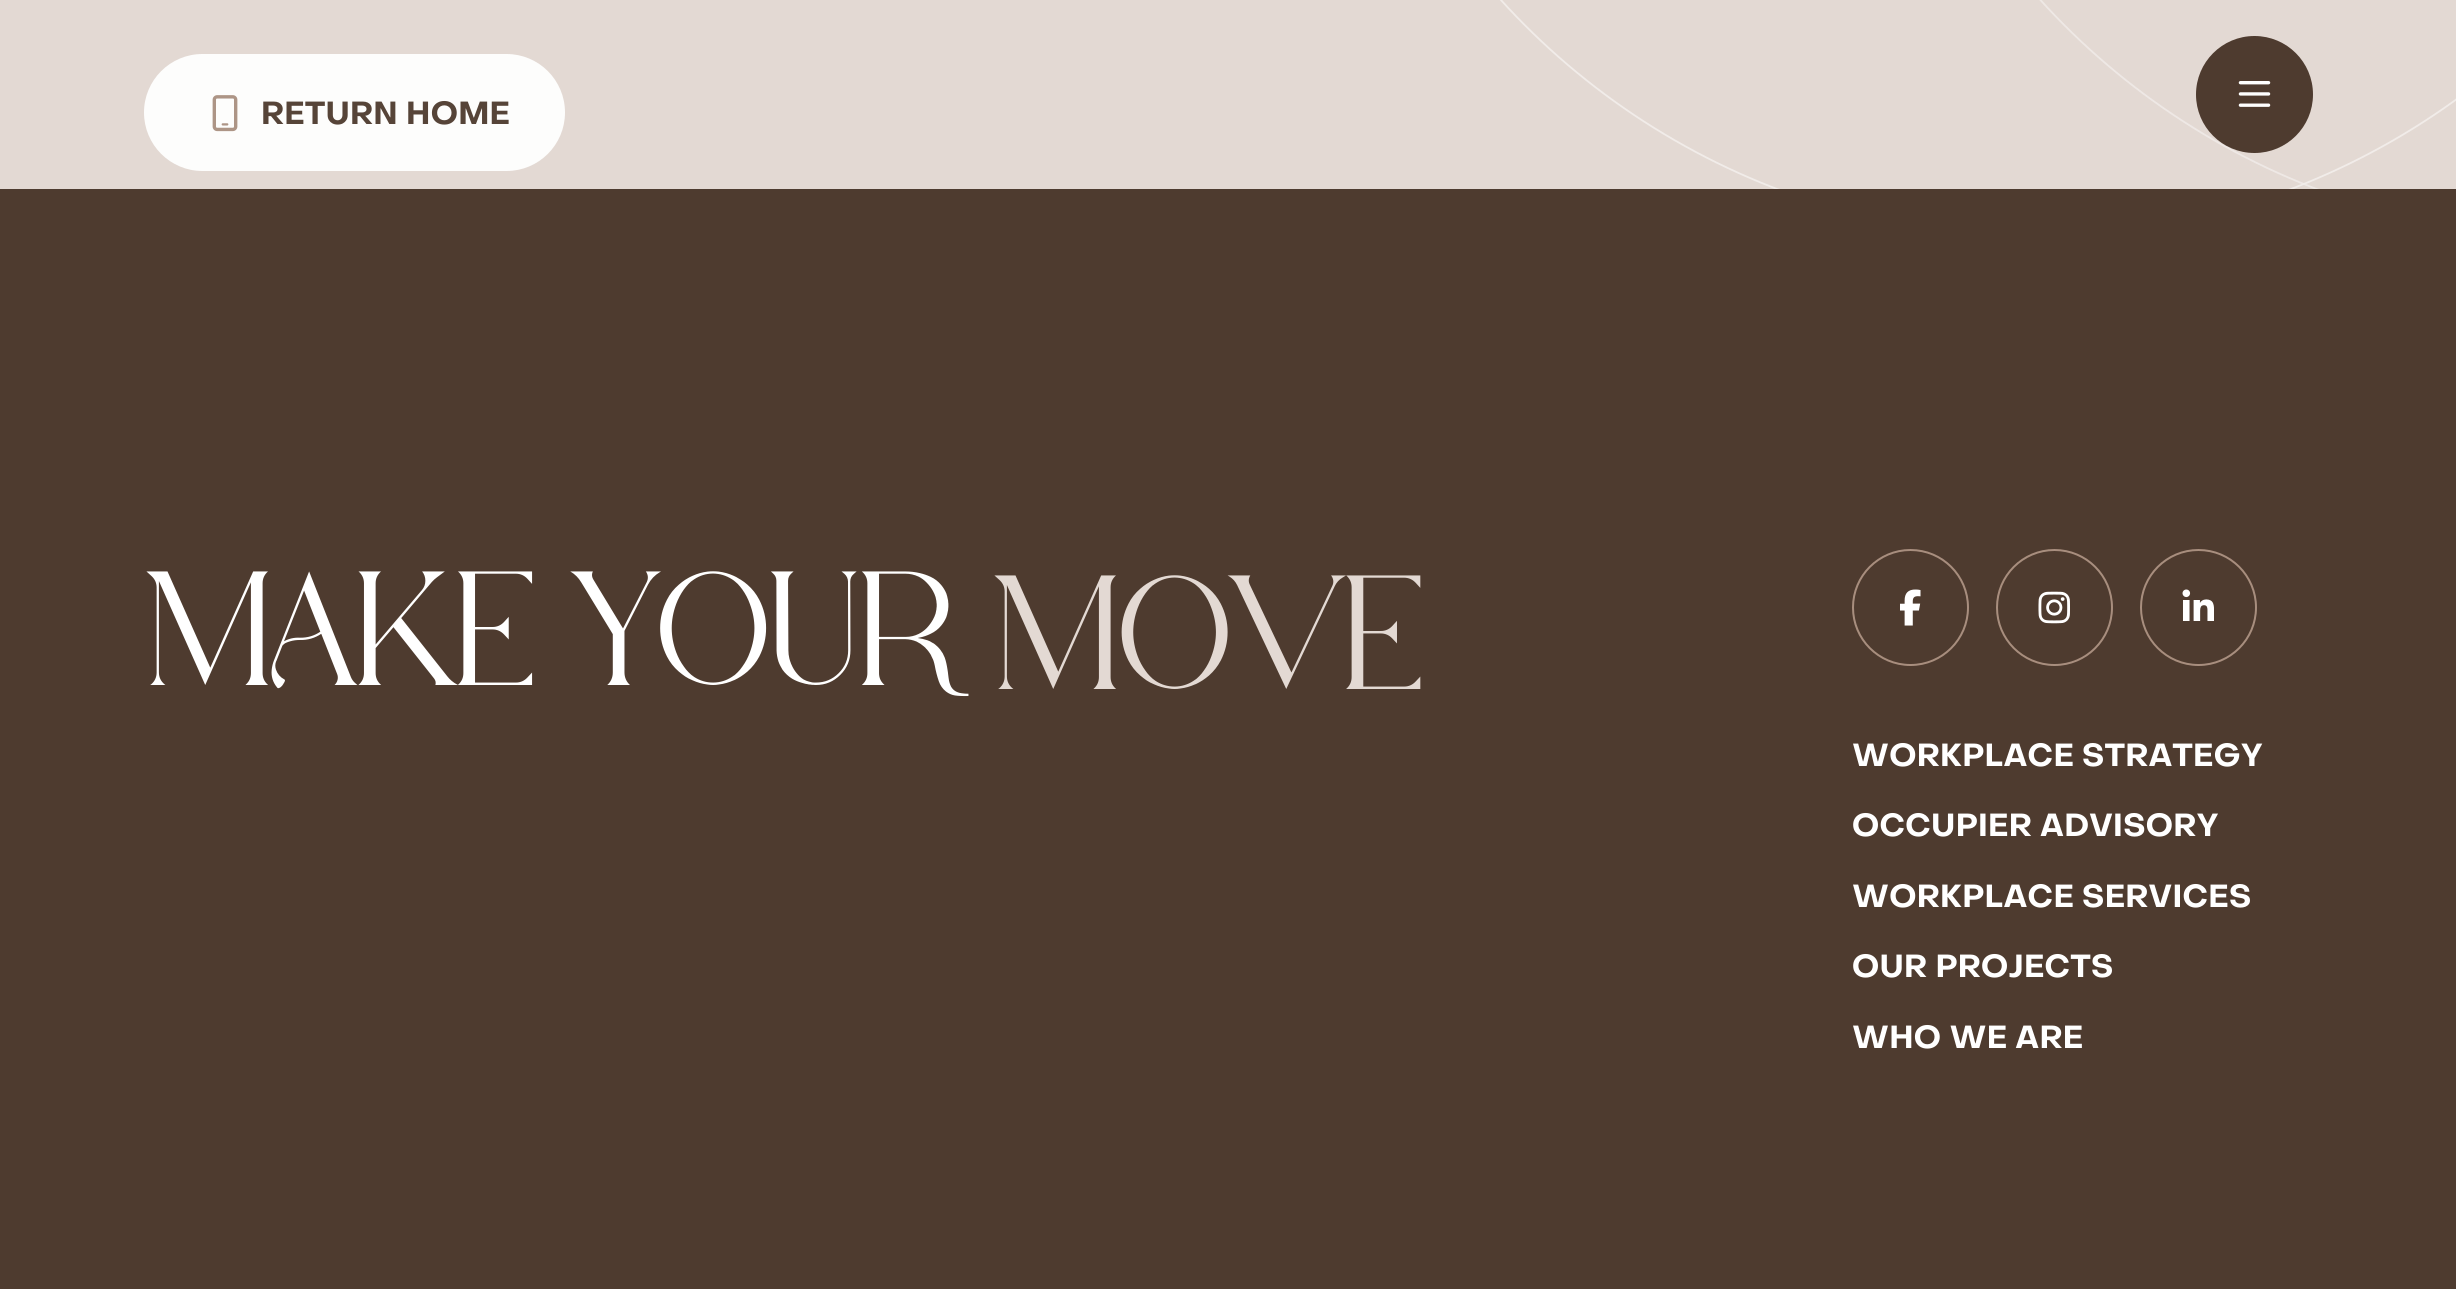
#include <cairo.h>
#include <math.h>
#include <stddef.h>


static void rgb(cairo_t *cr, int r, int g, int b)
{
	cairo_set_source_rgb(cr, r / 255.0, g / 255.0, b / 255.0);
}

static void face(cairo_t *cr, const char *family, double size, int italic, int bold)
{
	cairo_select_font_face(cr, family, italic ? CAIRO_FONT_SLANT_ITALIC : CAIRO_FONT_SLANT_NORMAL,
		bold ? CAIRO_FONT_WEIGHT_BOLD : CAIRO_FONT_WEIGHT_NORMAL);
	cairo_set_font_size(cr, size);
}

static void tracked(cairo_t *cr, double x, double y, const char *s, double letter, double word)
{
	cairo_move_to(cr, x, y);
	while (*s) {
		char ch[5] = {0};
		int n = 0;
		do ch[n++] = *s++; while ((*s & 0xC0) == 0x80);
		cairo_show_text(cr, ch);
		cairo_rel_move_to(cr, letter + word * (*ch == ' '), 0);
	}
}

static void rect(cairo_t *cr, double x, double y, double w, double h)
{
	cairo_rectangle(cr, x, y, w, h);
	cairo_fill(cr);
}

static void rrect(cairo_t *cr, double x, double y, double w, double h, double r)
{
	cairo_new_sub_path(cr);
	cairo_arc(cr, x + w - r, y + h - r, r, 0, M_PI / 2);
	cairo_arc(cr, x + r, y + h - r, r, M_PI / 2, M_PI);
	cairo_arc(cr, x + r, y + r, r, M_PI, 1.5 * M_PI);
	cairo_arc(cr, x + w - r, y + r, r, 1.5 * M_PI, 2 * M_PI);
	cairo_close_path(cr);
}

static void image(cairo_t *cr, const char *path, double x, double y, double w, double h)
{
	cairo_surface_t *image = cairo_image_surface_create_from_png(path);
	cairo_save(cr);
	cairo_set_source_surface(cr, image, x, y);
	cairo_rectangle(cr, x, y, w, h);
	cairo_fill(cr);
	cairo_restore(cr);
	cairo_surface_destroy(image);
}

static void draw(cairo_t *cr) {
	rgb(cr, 227, 217, 211);
	cairo_paint(cr);
	rgb(cr, 253, 253, 252);
	rrect(cr, 144, 54, 421, 117, 58.5);
	cairo_fill(cr);
	image(cr, "image0.png", 212, 95, 26, 37);
	face(cr, "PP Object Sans", 31.5, 0, 1);
	rgb(cr, 86, 68, 56);
	tracked(cr, 261, 124, "RETURN HOME", 0.3, 0);
	cairo_save(cr);
	cairo_rectangle(cr, 1314, 0, 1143, 189);
	cairo_clip(cr);
	cairo_arc(cr, 2034, -482.5, 719, 0, 2 * M_PI);
	rgb(cr, 241, 236, 233);
	cairo_set_line_width(cr, 1.8);
	cairo_stroke(cr);
	cairo_arc(cr, 2573.5, -482.5, 719, 0, 2 * M_PI);
	cairo_set_source_rgba(cr, 0.945, 0.925, 0.914, 0.8);
	cairo_stroke(cr);
	cairo_restore(cr);
	rgb(cr, 78, 59, 47);
	cairo_arc(cr, 2254.5, 94.5, 58.5, 0, 2 * M_PI);
	cairo_fill(cr);
	image(cr, "image1.png", 2238, 81, 33, 26);
	rect(cr, 0, 189, 2456, 1100);
	face(cr, "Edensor", 162, 0, 0);
	rgb(cr, 255, 255, 255);
	tracked(cr, 144, 685, "MAKE YOUR", -3.25, 0);
	rgb(cr, 227, 217, 211);
	tracked(cr, 992, 689, "MOVE", -3.25, 0);
	cairo_new_path(cr);
	cairo_arc(cr, 1910.5, 607.5, 57.5, 0, 2 * M_PI);
	rgb(cr, 168, 142, 126);
	cairo_stroke(cr);
	image(cr, "image2.png", 1900, 589, 21, 37);
	cairo_arc(cr, 2054.5, 607.5, 57.5, 0, 2 * M_PI);
	cairo_stroke(cr);
	image(cr, "image3.png", 2038, 591, 32, 33);
	cairo_arc(cr, 2198.5, 607.5, 57.5, 0, 2 * M_PI);
	cairo_stroke(cr);
	image(cr, "image4.png", 2182, 589, 32, 32);
	face(cr, "PP Object Sans", 31.5, 0, 1);
	rgb(cr, 255, 255, 255);
	tracked(cr, 1852, 766, "WORKPLACE STRATEGY", 0.3, 0);
	tracked(cr, 1852, 836, "OCCUPIER ADVISORY", 0.3, 0);
	tracked(cr, 1852, 907, "WORKPLACE SERVICES", 0.3, 0);
	tracked(cr, 1852, 977, "OUR PROJECTS", 0.3, 0);
	tracked(cr, 1852, 1048, "WHO WE ARE", 0.3, 0);
}

int main(void) {
	cairo_surface_t *surface = cairo_image_surface_create(CAIRO_FORMAT_RGB24, 2456, 1289);
	cairo_t *cr = cairo_create(surface);
	cairo_font_options_t *options = cairo_font_options_create();
	cairo_font_options_set_hint_metrics(options, CAIRO_HINT_METRICS_OFF);
	cairo_font_options_set_hint_style(options, CAIRO_HINT_STYLE_NONE);
	cairo_set_font_options(cr, options);
	cairo_set_miter_limit(cr, 4);
	draw(cr);
	cairo_surface_write_to_png(surface, "render.png");
	cairo_font_options_destroy(options);
	cairo_destroy(cr);
	cairo_surface_destroy(surface);
	return 0;
}
